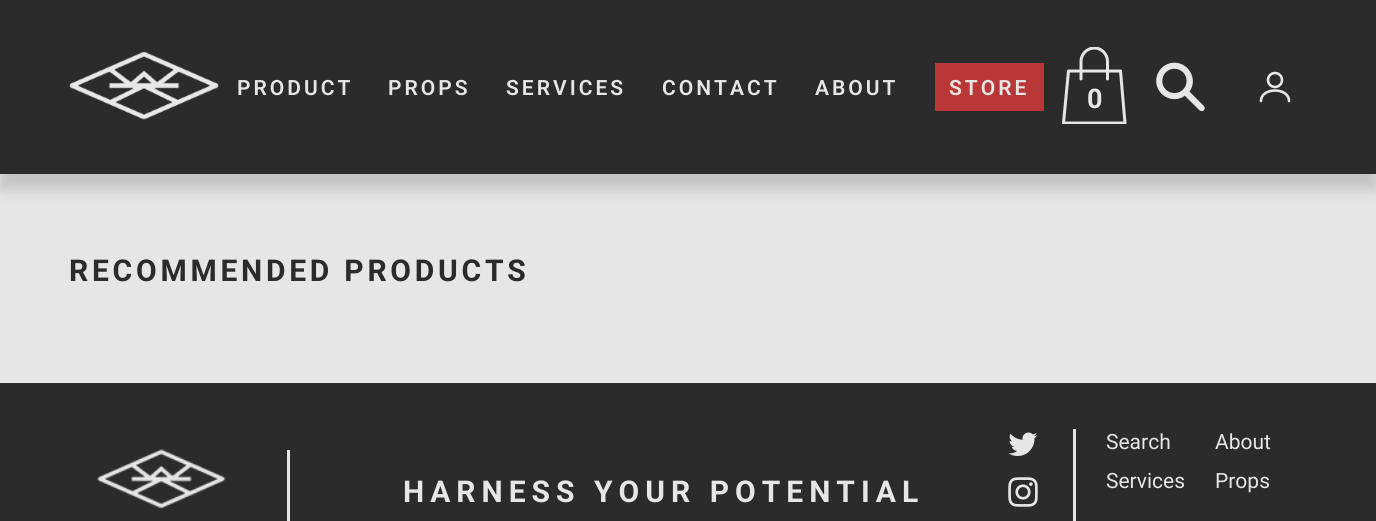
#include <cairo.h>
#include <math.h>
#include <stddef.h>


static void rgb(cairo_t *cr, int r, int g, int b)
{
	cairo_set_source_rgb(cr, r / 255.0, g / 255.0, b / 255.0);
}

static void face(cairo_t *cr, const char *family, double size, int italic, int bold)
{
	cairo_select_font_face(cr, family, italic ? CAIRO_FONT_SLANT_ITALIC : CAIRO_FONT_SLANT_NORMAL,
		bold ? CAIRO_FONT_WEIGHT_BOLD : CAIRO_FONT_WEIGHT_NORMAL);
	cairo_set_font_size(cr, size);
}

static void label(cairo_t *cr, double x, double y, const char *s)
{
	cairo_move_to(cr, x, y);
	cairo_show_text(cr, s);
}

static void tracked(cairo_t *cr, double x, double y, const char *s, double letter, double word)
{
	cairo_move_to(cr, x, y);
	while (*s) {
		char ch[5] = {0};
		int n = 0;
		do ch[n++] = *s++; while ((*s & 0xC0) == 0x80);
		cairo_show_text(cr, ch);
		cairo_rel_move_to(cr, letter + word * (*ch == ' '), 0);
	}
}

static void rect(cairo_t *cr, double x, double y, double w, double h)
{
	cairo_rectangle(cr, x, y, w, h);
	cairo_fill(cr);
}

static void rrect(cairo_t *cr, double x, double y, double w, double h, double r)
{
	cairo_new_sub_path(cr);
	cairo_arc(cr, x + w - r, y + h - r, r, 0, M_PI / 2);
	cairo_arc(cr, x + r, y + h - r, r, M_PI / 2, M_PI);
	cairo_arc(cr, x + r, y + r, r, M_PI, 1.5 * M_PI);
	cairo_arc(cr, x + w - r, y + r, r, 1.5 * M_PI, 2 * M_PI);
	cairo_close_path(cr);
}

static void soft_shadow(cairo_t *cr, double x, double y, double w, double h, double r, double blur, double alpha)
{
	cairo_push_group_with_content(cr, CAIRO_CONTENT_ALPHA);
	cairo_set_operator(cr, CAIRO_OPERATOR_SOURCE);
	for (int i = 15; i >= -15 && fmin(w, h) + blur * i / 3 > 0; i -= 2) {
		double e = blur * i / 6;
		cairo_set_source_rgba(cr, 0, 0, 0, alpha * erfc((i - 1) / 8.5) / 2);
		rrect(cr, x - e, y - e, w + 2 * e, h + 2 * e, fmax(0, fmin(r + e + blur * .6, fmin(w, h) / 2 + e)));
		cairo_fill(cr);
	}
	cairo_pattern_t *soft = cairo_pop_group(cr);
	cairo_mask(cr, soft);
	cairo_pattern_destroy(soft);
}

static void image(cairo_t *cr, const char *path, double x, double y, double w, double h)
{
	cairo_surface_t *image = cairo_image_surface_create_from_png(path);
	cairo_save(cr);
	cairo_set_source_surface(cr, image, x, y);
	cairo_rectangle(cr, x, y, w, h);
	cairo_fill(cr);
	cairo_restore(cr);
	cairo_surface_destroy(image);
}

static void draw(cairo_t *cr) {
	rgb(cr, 230, 230, 230);
	cairo_paint(cr);
	rgb(cr, 0, 0, 0);
	soft_shadow(cr, 0, 15, 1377, 174, 0, 7.5, 0.16);
	rgb(cr, 43, 43, 43);
	rect(cr, 0, 0, 1376, 174);
	image(cr, "image0.png", 69, 51, 150, 69);
	face(cr, "Roboto SemiBold", 21, 0, 0);
	rgb(cr, 230, 230, 230);
	tracked(cr, 237, 95, "PRODUCT", 3, 0);
	tracked(cr, 388, 95, "PROPS", 3, 0);
	tracked(cr, 506, 95, "SERVICES", 3, 0);
	tracked(cr, 662, 95, "CONTACT", 3, 0);
	tracked(cr, 815, 95, "ABOUT", 3, 0);
	rgb(cr, 185, 55, 55);
	rect(cr, 935, 63, 109, 48);
	rgb(cr, 230, 230, 230);
	tracked(cr, 949, 95, "STORE", 3, 0);
	cairo_save(cr);
	cairo_rectangle(cr, 1062, 47, 65, 77);
	cairo_clip(cr);
	cairo_new_path(cr);
	cairo_move_to(cr, 1125, 123);
	cairo_line_to(cr, 1063.5, 123);
	cairo_line_to(cr, 1068.5, 71);
	cairo_line_to(cr, 1120.5, 71);
	cairo_close_path(cr);
	cairo_set_line_width(cr, 3);
	cairo_set_line_cap(cr, CAIRO_LINE_CAP_ROUND);
	cairo_set_line_join(cr, CAIRO_LINE_JOIN_ROUND);
	cairo_stroke(cr);
	cairo_restore(cr);
	face(cr, "Roboto", 27, 0, 1);
	tracked(cr, 1087, 108, "0", 1, 0);
	cairo_save(cr);
	cairo_rectangle(cr, 1062, 47, 65, 77);
	cairo_clip(cr);
	cairo_new_path(cr);
	cairo_move_to(cr, 1107.5, 79);
	cairo_line_to(cr, 1107.5, 61.5);
	cairo_curve_to(cr, 1107.5, 54, 1101.5, 48, 1094.5, 48);
	cairo_curve_to(cr, 1087, 48, 1081, 54, 1081, 61.5);
	cairo_line_to(cr, 1081, 79);
	cairo_set_line_width(cr, 3);
	cairo_set_line_cap(cr, CAIRO_LINE_CAP_ROUND);
	cairo_stroke(cr);
	cairo_restore(cr);
	image(cr, "image1.png", 1156, 62, 49, 50);
	cairo_arc(cr, 1275, 80, 7, 0, 2 * M_PI);
	cairo_set_line_width(cr, 2.6);
	cairo_stroke(cr);
	cairo_new_path(cr);
	cairo_move_to(cr, 1261, 101);
	cairo_curve_to(cr, 1261, 87, 1289, 87, 1289, 101);
	cairo_set_line_cap(cr, CAIRO_LINE_CAP_ROUND);
	cairo_set_line_join(cr, CAIRO_LINE_JOIN_ROUND);
	cairo_stroke(cr);
	face(cr, "Roboto", 30, 0, 1);
	rgb(cr, 43, 43, 43);
	tracked(cr, 69, 281, "RECOMMENDED PRODUCTS", 3.75, 0);
	rect(cr, 0, 383, 1376, 138);
	image(cr, "image2.png", 97, 449, 129, 60);
	rgb(cr, 230, 230, 230);
	rect(cr, 287, 450, 3, 71);
	tracked(cr, 403, 502, "HARNESS YOUR POTENTIAL", 6, 0);
	image(cr, "image3.png", 1008, 432, 30, 24);
	image(cr, "image4.png", 1008, 477, 30, 30);
	rect(cr, 1073, 429, 3, 92);
	face(cr, "Roboto", 21, 0, 0);
	label(cr, 1106, 449, "Search");
	label(cr, 1215, 449, "About");
	label(cr, 1106, 488, "Services");
	label(cr, 1215, 488, "Props");
}

int main(void) {
	cairo_surface_t *surface = cairo_image_surface_create(CAIRO_FORMAT_RGB24, 1376, 521);
	cairo_t *cr = cairo_create(surface);
	cairo_font_options_t *options = cairo_font_options_create();
	cairo_font_options_set_hint_metrics(options, CAIRO_HINT_METRICS_OFF);
	cairo_font_options_set_hint_style(options, CAIRO_HINT_STYLE_NONE);
	cairo_set_font_options(cr, options);
	cairo_set_miter_limit(cr, 4);
	draw(cr);
	cairo_surface_write_to_png(surface, "render.png");
	cairo_font_options_destroy(options);
	cairo_destroy(cr);
	cairo_surface_destroy(surface);
	return 0;
}
